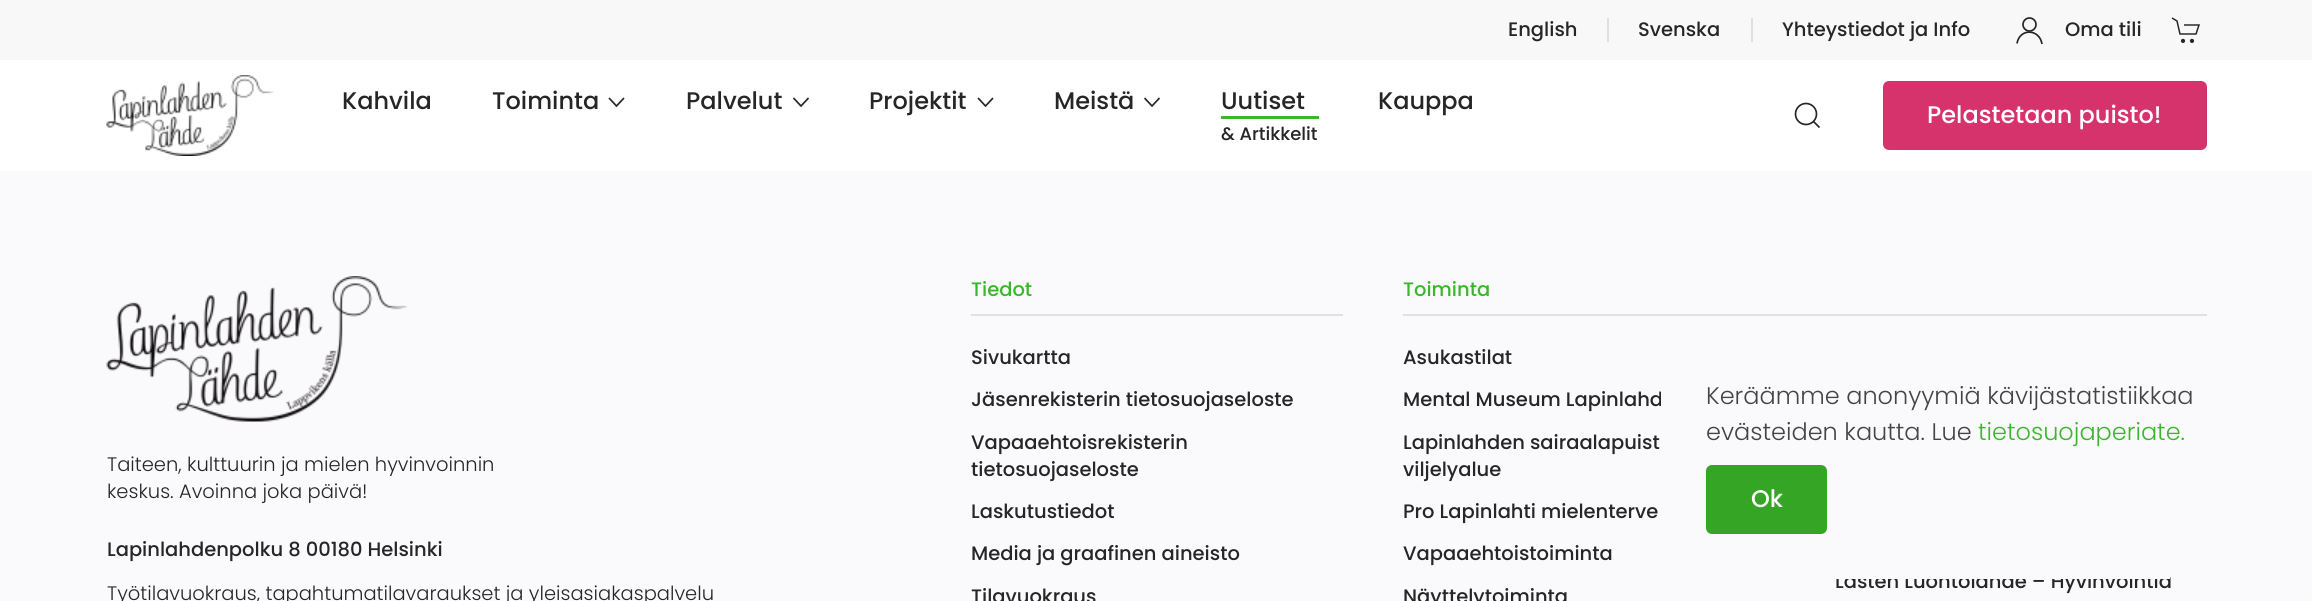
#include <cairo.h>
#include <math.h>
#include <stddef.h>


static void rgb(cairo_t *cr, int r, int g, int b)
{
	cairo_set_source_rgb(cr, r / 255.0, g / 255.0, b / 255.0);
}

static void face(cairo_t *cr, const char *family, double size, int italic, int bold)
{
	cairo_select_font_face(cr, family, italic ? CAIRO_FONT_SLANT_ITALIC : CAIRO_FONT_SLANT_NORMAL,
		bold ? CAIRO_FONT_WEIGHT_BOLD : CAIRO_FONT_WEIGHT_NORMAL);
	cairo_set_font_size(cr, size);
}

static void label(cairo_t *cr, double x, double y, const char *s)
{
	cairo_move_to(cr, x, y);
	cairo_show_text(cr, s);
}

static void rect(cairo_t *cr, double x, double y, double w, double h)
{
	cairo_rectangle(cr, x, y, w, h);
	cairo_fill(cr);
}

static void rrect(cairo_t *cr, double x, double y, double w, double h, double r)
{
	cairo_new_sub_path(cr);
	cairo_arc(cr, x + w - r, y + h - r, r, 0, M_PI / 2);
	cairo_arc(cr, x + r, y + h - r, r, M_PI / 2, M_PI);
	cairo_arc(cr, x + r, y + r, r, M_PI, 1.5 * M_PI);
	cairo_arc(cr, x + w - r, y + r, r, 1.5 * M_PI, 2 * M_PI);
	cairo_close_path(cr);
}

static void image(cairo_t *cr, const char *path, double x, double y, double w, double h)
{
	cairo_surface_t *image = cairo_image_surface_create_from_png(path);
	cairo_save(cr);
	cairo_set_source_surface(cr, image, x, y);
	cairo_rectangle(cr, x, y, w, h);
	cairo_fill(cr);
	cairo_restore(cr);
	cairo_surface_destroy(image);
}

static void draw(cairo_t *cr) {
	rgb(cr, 255, 255, 255);
	cairo_paint(cr);
	rgb(cr, 248, 248, 248);
	rect(cr, 0, 0, 2312, 60);
	face(cr, "Poppins Medium", 19.5, 0, 0);
	rgb(cr, 38, 38, 38);
	label(cr, 1508, 36, "English");
	rgb(cr, 223, 223, 223);
	rect(cr, 1607, 18, 2, 24);
	rgb(cr, 38, 38, 38);
	label(cr, 1638, 36, "Svenska");
	rgb(cr, 223, 223, 223);
	rect(cr, 1751, 18, 2, 24);
	rgb(cr, 38, 38, 38);
	label(cr, 1782, 36, "Yhteystiedot ja Info");
	cairo_new_path(cr);
	cairo_arc(cr, 2029.5, 24.5, 6.5, 0, 2 * M_PI);
	cairo_set_line_width(cr, 1.7);
	cairo_stroke(cr);
	cairo_new_path(cr);
	cairo_move_to(cr, 2017, 43.5);
	cairo_curve_to(cr, 2019.5, 28, 2039.5, 28.5, 2042, 44);
	cairo_stroke(cr);
	label(cr, 2065, 36, "Oma tili");
	cairo_new_path(cr);
	cairo_move_to(cr, 2172, 18);
	cairo_line_to(cr, 2177, 21);
	cairo_line_to(cr, 2180, 34);
	cairo_line_to(cr, 2196, 34);
	cairo_line_to(cr, 2199, 25);
	cairo_line_to(cr, 2184, 25);
	cairo_set_line_width(cr, 1.5);
	cairo_stroke(cr);
	cairo_arc(cr, 2183, 40.9, 2.1, 0, 2 * M_PI);
	cairo_fill(cr);
	cairo_arc(cr, 2192, 40.9, 2.1, 0, 2 * M_PI);
	cairo_fill(cr);
	image(cr, "image0.png", 106, 75, 167, 81);
	face(cr, "Poppins Medium", 24, 0, 0);
	label(cr, 342, 109, "Kahvila");
	label(cr, 492, 109, "Toiminta");
	cairo_new_path(cr);
	cairo_move_to(cr, 609, 98);
	cairo_line_to(cr, 616.5, 106);
	cairo_line_to(cr, 624, 98);
	cairo_set_line_width(cr, 1.7);
	cairo_stroke(cr);
	label(cr, 686, 109, "Palvelut");
	cairo_new_path(cr);
	cairo_move_to(cr, 793.5, 98);
	cairo_line_to(cr, 801, 106);
	cairo_line_to(cr, 808.5, 98);
	cairo_stroke(cr);
	label(cr, 869, 109, "Projektit");
	cairo_new_path(cr);
	cairo_move_to(cr, 978, 98);
	cairo_line_to(cr, 985.5, 106);
	cairo_line_to(cr, 993, 98);
	cairo_stroke(cr);
	label(cr, 1054, 109, "Meistä");
	cairo_new_path(cr);
	cairo_move_to(cr, 1144.5, 98);
	cairo_line_to(cr, 1152, 106);
	cairo_line_to(cr, 1159.5, 98);
	cairo_stroke(cr);
	label(cr, 1221, 109, "Uutiset");
	face(cr, "Poppins Medium", 18, 0, 0);
	label(cr, 1221, 140, "& Artikkelit");
	rgb(cr, 58, 182, 42);
	rect(cr, 1221, 116, 98, 3);
	face(cr, "Poppins Medium", 24, 0, 0);
	rgb(cr, 38, 38, 38);
	label(cr, 1378, 109, "Kauppa");
	cairo_new_path(cr);
	cairo_arc(cr, 1806, 114, 10.5, 0, 2 * M_PI);
	cairo_stroke(cr);
	cairo_new_path(cr);
	cairo_move_to(cr, 1813.5, 121.5);
	cairo_line_to(cr, 1819.5, 127.5);
	cairo_close_path(cr);
	cairo_stroke(cr);
	rgb(cr, 214, 51, 108);
	rrect(cr, 1883, 81, 324, 69, 6);
	cairo_fill(cr);
	rgb(cr, 255, 255, 255);
	label(cr, 1927, 123, "Pelastetaan puisto!");
	rgb(cr, 250, 249, 252);
	rect(cr, 0, 171, 2312, 430);
	image(cr, "image1.png", 106, 276, 301, 146);
	face(cr, "Poppins Light", 19.5, 0, 0);
	rgb(cr, 38, 38, 38);
	label(cr, 107, 471, "Taiteen, kulttuurin ja mielen hyvinvoinnin");
	label(cr, 107, 498, "keskus. Avoinna joka päivä!");
	face(cr, "Poppins Medium", 19.5, 0, 0);
	label(cr, 107, 556, "Lapinlahdenpolku 8 00180 Helsinki");
	face(cr, "Poppins Light", 19.5, 0, 0);
	label(cr, 107, 600, "Työtilavuokraus, tapahtumatilavaraukset ja yleisasiakaspalvelu");
	rgb(cr, 225, 224, 227);
	rect(cr, 971, 314, 372, 2);
	face(cr, "Poppins Medium", 19.5, 0, 0);
	rgb(cr, 58, 182, 42);
	label(cr, 971, 296, "Tiedot");
	rgb(cr, 38, 38, 38);
	label(cr, 971, 364, "Sivukartta");
	label(cr, 971, 406, "Jäsenrekisterin tietosuojaseloste");
	label(cr, 971, 449, "Vapaaehtoisrekisterin");
	label(cr, 971, 476, "tietosuojaseloste");
	label(cr, 971, 518, "Laskutustiedot");
	label(cr, 971, 560, "Media ja graafinen aineisto");
	label(cr, 971, 603, "Tilavuokraus");
	rgb(cr, 225, 224, 227);
	rect(cr, 1403, 314, 804, 2);
	rgb(cr, 58, 182, 42);
	label(cr, 1403, 296, "Toiminta");
	rgb(cr, 38, 38, 38);
	label(cr, 1403, 364, "Asukastilat");
	label(cr, 1403, 406, "Mental Museum Lapinlahd");
	label(cr, 1403, 449, "Lapinlahden sairaalapuist");
	label(cr, 1403, 476, "viljelyalue");
	label(cr, 1403, 518, "Pro Lapinlahti mielenterve");
	label(cr, 1403, 560, "Vapaaehtoistoiminta");
	label(cr, 1403, 603, "Näyttelytoiminta");
	label(cr, 1835, 588, "Lasten Luontolähde – Hyvinvointia");
	rgb(cr, 250, 249, 252);
	rect(cr, 1661, 391, 509, 188);
	face(cr, "Poppins Light", 24, 0, 0);
	rgb(cr, 68, 68, 68);
	label(cr, 1706, 404, "Keräämme anonyymiä kävijästatistiikkaa");
	label(cr, 1706, 440, "evästeiden kautta. Lue");
	rgb(cr, 58, 182, 42);
	label(cr, 1978, 440, "tietosuojaperiate.");
	rgb(cr, 53, 165, 38);
	rrect(cr, 1706, 465, 121, 69, 6);
	cairo_fill(cr);
	face(cr, "Poppins Medium", 24, 0, 0);
	rgb(cr, 255, 255, 255);
	label(cr, 1751, 507, "Ok");
}

int main(void) {
	cairo_surface_t *surface = cairo_image_surface_create(CAIRO_FORMAT_RGB24, 2312, 601);
	cairo_t *cr = cairo_create(surface);
	cairo_font_options_t *options = cairo_font_options_create();
	cairo_font_options_set_hint_metrics(options, CAIRO_HINT_METRICS_OFF);
	cairo_font_options_set_hint_style(options, CAIRO_HINT_STYLE_NONE);
	cairo_set_font_options(cr, options);
	cairo_set_miter_limit(cr, 4);
	draw(cr);
	cairo_surface_write_to_png(surface, "render.png");
	cairo_font_options_destroy(options);
	cairo_destroy(cr);
	cairo_surface_destroy(surface);
	return 0;
}
